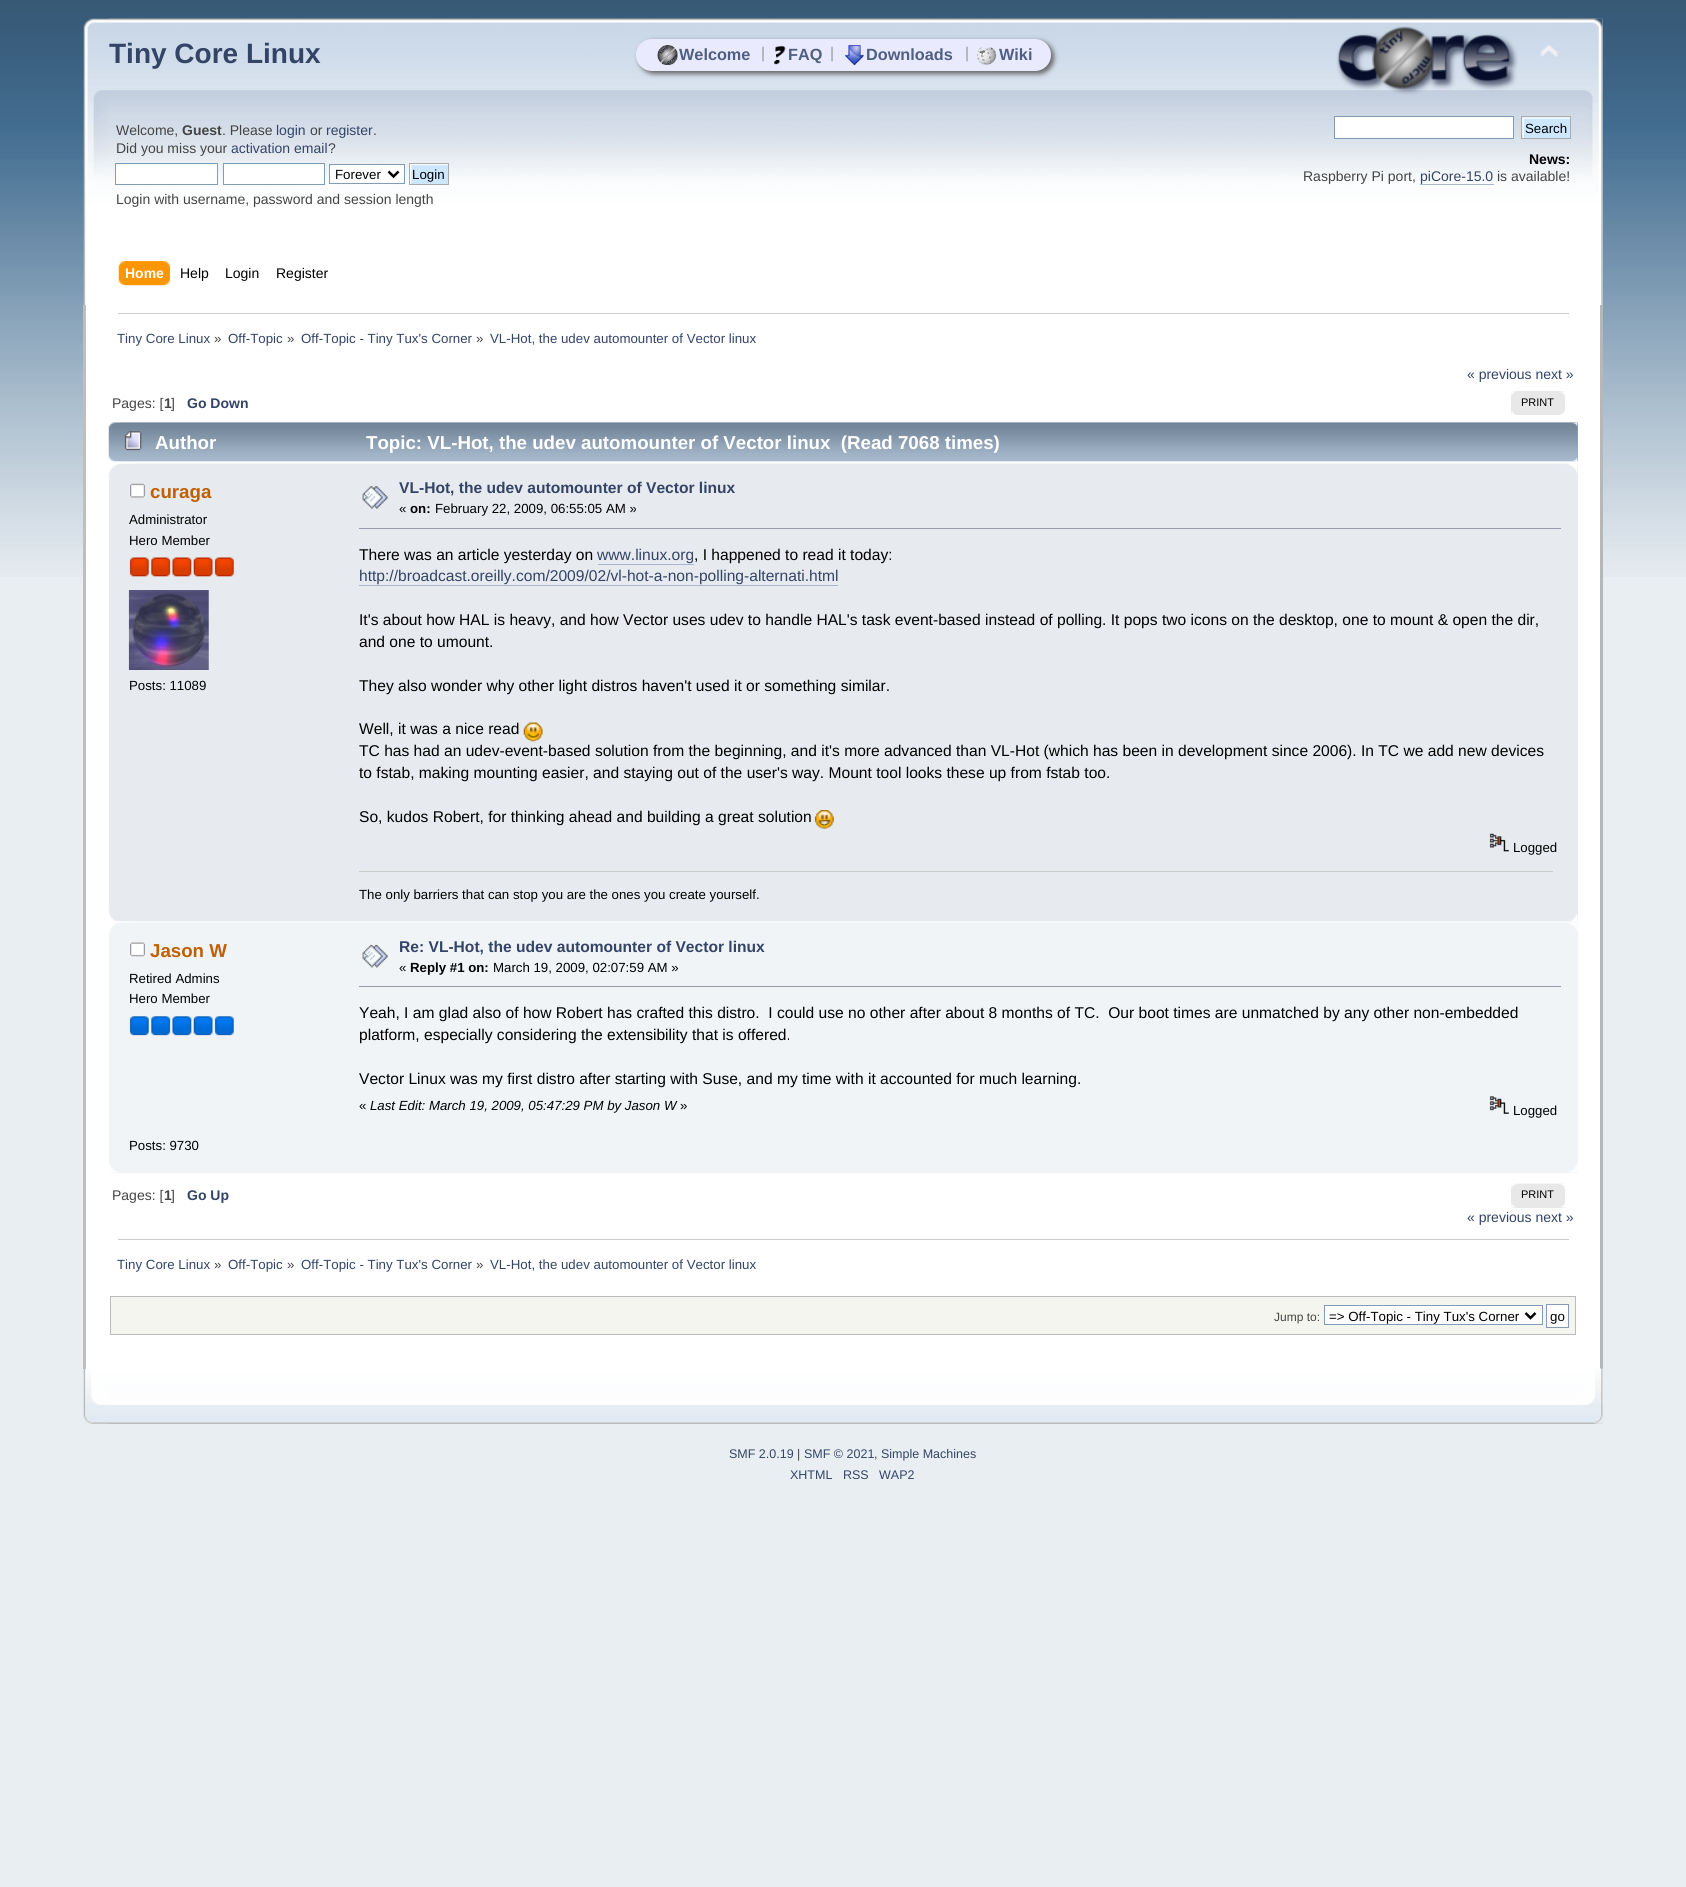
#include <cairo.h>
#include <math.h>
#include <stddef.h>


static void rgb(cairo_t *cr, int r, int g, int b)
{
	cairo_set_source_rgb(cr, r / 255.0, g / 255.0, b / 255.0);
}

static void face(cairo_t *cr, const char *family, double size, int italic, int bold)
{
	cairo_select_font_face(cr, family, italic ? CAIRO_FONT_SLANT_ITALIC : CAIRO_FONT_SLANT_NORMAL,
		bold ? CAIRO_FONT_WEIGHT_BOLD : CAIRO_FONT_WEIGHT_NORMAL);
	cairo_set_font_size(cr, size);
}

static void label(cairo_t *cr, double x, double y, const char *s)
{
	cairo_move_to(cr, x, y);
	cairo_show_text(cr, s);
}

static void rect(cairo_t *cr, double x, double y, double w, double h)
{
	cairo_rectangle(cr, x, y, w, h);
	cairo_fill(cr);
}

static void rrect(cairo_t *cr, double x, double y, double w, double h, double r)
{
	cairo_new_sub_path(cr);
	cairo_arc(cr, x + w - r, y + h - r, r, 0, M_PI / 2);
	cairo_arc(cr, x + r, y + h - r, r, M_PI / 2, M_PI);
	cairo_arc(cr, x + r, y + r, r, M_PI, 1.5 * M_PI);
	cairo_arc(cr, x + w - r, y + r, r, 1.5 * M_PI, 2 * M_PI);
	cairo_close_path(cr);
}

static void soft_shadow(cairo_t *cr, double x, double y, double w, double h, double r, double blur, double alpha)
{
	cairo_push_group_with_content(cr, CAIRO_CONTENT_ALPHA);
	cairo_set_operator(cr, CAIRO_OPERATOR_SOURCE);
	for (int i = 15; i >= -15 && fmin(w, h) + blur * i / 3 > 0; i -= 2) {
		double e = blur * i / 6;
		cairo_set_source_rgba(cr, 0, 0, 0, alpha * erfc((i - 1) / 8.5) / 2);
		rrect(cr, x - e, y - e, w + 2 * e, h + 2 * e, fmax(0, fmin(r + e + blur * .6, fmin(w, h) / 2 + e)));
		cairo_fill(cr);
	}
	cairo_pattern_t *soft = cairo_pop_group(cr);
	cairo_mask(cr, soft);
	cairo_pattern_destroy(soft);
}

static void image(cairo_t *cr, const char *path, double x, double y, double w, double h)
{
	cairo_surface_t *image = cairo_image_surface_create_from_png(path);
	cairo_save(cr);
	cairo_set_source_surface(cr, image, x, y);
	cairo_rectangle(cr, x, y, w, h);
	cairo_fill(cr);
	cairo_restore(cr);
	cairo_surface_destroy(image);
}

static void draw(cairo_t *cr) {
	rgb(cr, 233, 238, 242);
	cairo_paint(cr);
	image(cr, "image0.png", 0, 0, 1686, 577);
	image(cr, "image1.png", 83, 18, 1520, 287);
	image(cr, "image2.png", 108, 18, 1495, 287);
	face(cr, "Liberation Sans", 28, 0, 1);
	rgb(cr, 51, 68, 102);
	label(cr, 109, 63, "Tiny Core Linux");
	image(cr, "image3.png", 1336, 26, 182, 69);
	image(cr, "image4.png", 1540, 45, 18, 13);
	face(cr, "Liberation Sans", 14, 0, 0);
	rgb(cr, 68, 68, 68);
	label(cr, 116, 135, "Welcome,");
	face(cr, "Liberation Sans", 14, 0, 1);
	label(cr, 182, 135, "Guest");
	face(cr, "Liberation Sans", 14, 0, 0);
	label(cr, 222, 135, ". Please");
	rgb(cr, 51, 68, 102);
	label(cr, 276, 135, "login");
	rgb(cr, 68, 68, 68);
	label(cr, 310, 135, "or");
	rgb(cr, 51, 68, 102);
	label(cr, 326, 135, "register");
	rgb(cr, 68, 68, 68);
	label(cr, 373, 135, ".");
	label(cr, 116, 153, "Did you miss your");
	rgb(cr, 51, 68, 102);
	label(cr, 231, 153, "activation email");
	rgb(cr, 68, 68, 68);
	label(cr, 328, 153, "?");
	rgb(cr, 255, 255, 255);
	cairo_rectangle(cr, 115.5, 163.5, 102, 21);
	cairo_fill_preserve(cr);
	rgb(cr, 127, 157, 185);
	cairo_set_line_width(cr, 1);
	cairo_stroke(cr);
	rgb(cr, 255, 255, 255);
	cairo_rectangle(cr, 223.5, 163.5, 101, 21);
	cairo_fill_preserve(cr);
	rgb(cr, 127, 157, 185);
	cairo_stroke(cr);
	rgb(cr, 255, 255, 255);
	cairo_rectangle(cr, 329.5, 164.5, 75, 19);
	cairo_fill_preserve(cr);
	rgb(cr, 127, 157, 185);
	cairo_stroke(cr);
	cairo_new_path(cr);
	cairo_move_to(cr, 388.5, 171.5);
	cairo_line_to(cr, 393.5, 176.5);
	cairo_line_to(cr, 398.5, 171.5);
	rgb(cr, 0, 0, 0);
	cairo_set_line_width(cr, 2.5);
	cairo_stroke(cr);
	face(cr, "Liberation Sans", 13.3, 0, 0);
	label(cr, 335, 179, "Forever");
	image(cr, "image5.png", 410, 164, 38, 20);
	cairo_rectangle(cr, 409.5, 163.5, 39, 21);
	rgb(cr, 170, 170, 170);
	cairo_set_line_width(cr, 1);
	cairo_stroke(cr);
	rgb(cr, 0, 0, 0);
	label(cr, 412, 179, "Login");
	face(cr, "Liberation Sans", 14, 0, 0);
	rgb(cr, 68, 68, 68);
	label(cr, 116, 204, "Login with username, password and session length");
	rgb(cr, 255, 255, 255);
	cairo_rectangle(cr, 1334.5, 116.5, 179, 22);
	cairo_fill_preserve(cr);
	rgb(cr, 127, 157, 185);
	cairo_stroke(cr);
	rgb(cr, 205, 231, 255);
	rect(cr, 1522, 117, 48, 21);
	image(cr, "image6.png", 1522, 117, 50, 22);
	cairo_rectangle(cr, 1521.5, 116.5, 49, 22);
	rgb(cr, 170, 170, 170);
	cairo_stroke(cr);
	face(cr, "Liberation Sans", 13.3, 0, 0);
	rgb(cr, 0, 0, 0);
	label(cr, 1525, 133, "Search");
	face(cr, "Liberation Sans", 14, 0, 1);
	label(cr, 1529, 164, "News:");
	face(cr, "Liberation Sans", 14, 0, 0);
	rgb(cr, 68, 68, 68);
	label(cr, 1303, 181, "Raspberry Pi port,");
	rgb(cr, 51, 68, 102);
	label(cr, 1420, 181, "piCore-15.0");
	rgb(cr, 168, 182, 207);
	rect(cr, 1420, 184, 74, 1);
	rgb(cr, 68, 68, 68);
	label(cr, 1497, 181, "is available!");
	image(cr, "image7.png", 125, 261, 45, 25);
	image(cr, "image8.png", 118, 261, 46, 25);
	face(cr, "Liberation Sans", 14, 0, 1);
	rgb(cr, 255, 255, 255);
	label(cr, 125, 278, "Home");
	face(cr, "Liberation Sans", 14, 0, 0);
	rgb(cr, 0, 0, 0);
	label(cr, 180, 278, "Help");
	label(cr, 225, 278, "Login");
	label(cr, 276, 278, "Register");
	rgb(cr, 255, 255, 255);
	rect(cr, 86, 305, 1514, 1064);
	rgb(cr, 190, 190, 190);
	rect(cr, 83, 305, 3, 1064);
	rgb(cr, 183, 183, 183);
	rect(cr, 1600, 305, 3, 1064);
	rgb(cr, 204, 204, 204);
	rect(cr, 118, 313, 1451, 1);
	face(cr, "Liberation Sans", 13.3, 0, 0);
	rgb(cr, 51, 68, 102);
	label(cr, 117, 343, "Tiny Core Linux");
	rgb(cr, 68, 68, 68);
	label(cr, 214, 343, "»");
	rgb(cr, 51, 68, 102);
	label(cr, 228, 343, "Off-Topic");
	rgb(cr, 68, 68, 68);
	label(cr, 287, 343, "»");
	rgb(cr, 51, 68, 102);
	label(cr, 301, 343, "Off-Topic - Tiny Tux's Corner");
	rgb(cr, 68, 68, 68);
	label(cr, 476, 343, "»");
	rgb(cr, 51, 68, 102);
	label(cr, 490, 343, "VL-Hot, the udev automounter of Vector linux");
	face(cr, "Liberation Sans", 14, 0, 0);
	label(cr, 1467, 379, "« previous next »");
	rgb(cr, 68, 68, 68);
	label(cr, 112, 408, "Pages: [");
	face(cr, "Liberation Sans", 14, 0, 1);
	label(cr, 164, 408, "1");
	face(cr, "Liberation Sans", 14, 0, 0);
	label(cr, 171, 408, "]");
	face(cr, "Liberation Sans", 14, 0, 1);
	rgb(cr, 51, 68, 102);
	label(cr, 187, 408, "Go Down");
	rgb(cr, 232, 232, 232);
	rect(cr, 1511, 391, 54, 24);
	image(cr, "image9.png", 1511, 391, 5, 24);
	image(cr, "image10.png", 1560, 391, 5, 24);
	face(cr, "Liberation Sans", 11, 0, 0);
	rgb(cr, 0, 0, 0);
	label(cr, 1521, 406, "PRINT");
	rgb(cr, 153, 171, 191);
	rect(cr, 1577, 423, 1, 38);
	image(cr, "image11.png", 108, 422, 1470, 40);
	image(cr, "image12.png", 120, 422, 1458, 40);
	image(cr, "image13.png", 124, 431, 18, 20);
	face(cr, "Liberation Sans", 18.7, 0, 1);
	rgb(cr, 255, 255, 255);
	label(cr, 155, 449, "Author");
	label(cr, 366, 449, "Topic: VL-Hot, the udev automounter of Vector linux  (Read 7068 times)");
	rgb(cr, 231, 234, 239);
	rect(cr, 109, 464, 1469, 457);
	image(cr, "image14.png", 108, 463, 1469, 14);
	image(cr, "image15.png", 134, 463, 1444, 10);
	image(cr, "image16.png", 130, 483, 15, 15);
	rgb(cr, 192, 96, 2);
	label(cr, 150, 498, "curaga");
	face(cr, "Liberation Sans", 13.25, 0, 0);
	rgb(cr, 0, 0, 0);
	label(cr, 129, 524, "Administrator");
	label(cr, 129, 545, "Hero Member");
	image(cr, "image17.png", 129, 557, 20, 20);
	image(cr, "image18.png", 151, 557, 20, 20);
	image(cr, "image19.png", 172, 557, 20, 20);
	image(cr, "image20.png", 193, 557, 20, 20);
	image(cr, "image21.png", 214, 557, 20, 20);
	image(cr, "image22.png", 128, 590, 81, 80);
	label(cr, 129, 690, "Posts: 11089");
	image(cr, "image23.png", 362, 486, 26, 23);
	face(cr, "Liberation Sans", 15.6, 0, 1);
	rgb(cr, 51, 68, 102);
	label(cr, 399, 493, "VL-Hot, the udev automounter of Vector linux");
	face(cr, "Liberation Sans", 13.25, 0, 0);
	rgb(cr, 0, 0, 0);
	label(cr, 399, 513, "«");
	face(cr, "Liberation Sans", 13.25, 0, 1);
	label(cr, 410, 513, "on:");
	face(cr, "Liberation Sans", 13.25, 0, 0);
	label(cr, 435, 513, "February 22, 2009, 06:55:05 AM »");
	rgb(cr, 153, 153, 170);
	rect(cr, 359, 528, 1202, 1);
	face(cr, "Liberation Sans", 15.6, 0, 0);
	rgb(cr, 0, 0, 0);
	label(cr, 359, 560, "There was an article yesterday on");
	rgb(cr, 51, 68, 102);
	label(cr, 597, 560, "www.linux.org");
	rgb(cr, 168, 182, 207);
	rect(cr, 598, 564, 96, 1);
	rgb(cr, 0, 0, 0);
	label(cr, 694, 560, ", I happened to read it today:");
	rgb(cr, 51, 68, 102);
	label(cr, 359, 581, "http://broadcast.oreilly.com/2009/02/vl-hot-a-non-polling-alternati.html");
	rgb(cr, 168, 182, 207);
	rect(cr, 359, 585, 479, 1);
	rgb(cr, 0, 0, 0);
	label(cr, 359, 625, "It's about how HAL is heavy, and how Vector uses udev to handle HAL's task event-based instead of polling. It pops two icons on the desktop, one to mount & open the dir,");
	label(cr, 359, 647, "and one to umount.");
	label(cr, 359, 691, "They also wonder why other light distros haven't used it or something similar.");
	label(cr, 359, 734, "Well, it was a nice read");
	image(cr, "image24.png", 523, 722, 20, 20);
	label(cr, 359, 756, "TC has had an udev-event-based solution from the beginning, and it's more advanced than VL-Hot (which has been in development since 2006). In TC we add new devices");
	label(cr, 359, 778, "to fstab, making mounting easier, and staying out of the user's way. Mount tool looks these up from fstab too.");
	label(cr, 359, 822, "So, kudos Robert, for thinking ahead and building a great solution");
	image(cr, "image25.png", 815, 810, 19, 19);
	image(cr, "image26.png", 1489, 833, 20, 19);
	face(cr, "Liberation Sans", 13.25, 0, 0);
	label(cr, 1513, 852, "Logged");
	rgb(cr, 204, 204, 204);
	rect(cr, 359, 871, 1194, 1);
	rgb(cr, 0, 0, 0);
	label(cr, 359, 899, "The only barriers that can stop you are the ones you create yourself.");
	image(cr, "image27.png", 108, 908, 1469, 14);
	image(cr, "image28.png", 134, 913, 1444, 9);
	rgb(cr, 240, 244, 247);
	rect(cr, 109, 923, 1469, 250);
	image(cr, "image29.png", 108, 922, 1470, 14);
	image(cr, "image30.png", 1568, 922, 10, 10);
	image(cr, "image31.png", 130, 942, 15, 15);
	face(cr, "Liberation Sans", 18.7, 0, 1);
	rgb(cr, 192, 96, 2);
	label(cr, 150, 957, "Jason W");
	face(cr, "Liberation Sans", 13.25, 0, 0);
	rgb(cr, 0, 0, 0);
	label(cr, 129, 983, "Retired Admins");
	label(cr, 129, 1003, "Hero Member");
	image(cr, "image32.png", 129, 1016, 20, 20);
	image(cr, "image33.png", 151, 1016, 20, 20);
	image(cr, "image34.png", 172, 1016, 20, 20);
	image(cr, "image35.png", 193, 1016, 20, 20);
	image(cr, "image36.png", 214, 1016, 20, 20);
	label(cr, 129, 1150, "Posts: 9730");
	image(cr, "image37.png", 362, 944, 26, 24);
	face(cr, "Liberation Sans", 15.6, 0, 1);
	rgb(cr, 51, 68, 102);
	label(cr, 399, 952, "Re: VL-Hot, the udev automounter of Vector linux");
	face(cr, "Liberation Sans", 13.25, 0, 0);
	rgb(cr, 0, 0, 0);
	label(cr, 399, 972, "«");
	face(cr, "Liberation Sans", 13.25, 0, 1);
	label(cr, 410, 972, "Reply #1 on:");
	face(cr, "Liberation Sans", 13.25, 0, 0);
	label(cr, 493, 972, "March 19, 2009, 02:07:59 AM »");
	rgb(cr, 153, 153, 170);
	rect(cr, 359, 986, 1202, 1);
	face(cr, "Liberation Sans", 15.6, 0, 0);
	rgb(cr, 0, 0, 0);
	label(cr, 359, 1018, "Yeah, I am glad also of how Robert has crafted this distro.  I could use no other after about 8 months of TC.  Our boot times are unmatched by any other non-embedded");
	label(cr, 359, 1040, "platform, especially considering the extensibility that is offered.");
	label(cr, 359, 1084, "Vector Linux was my first distro after starting with Suse, and my time with it accounted for much learning.");
	face(cr, "Liberation Sans", 13.25, 0, 0);
	label(cr, 359, 1110, "«");
	face(cr, "Liberation Sans", 13.25, 1, 0);
	label(cr, 370, 1110, "Last Edit: March 19, 2009, 05:47:29 PM by Jason W");
	face(cr, "Liberation Sans", 13.25, 0, 0);
	label(cr, 680, 1110, "»");
	image(cr, "image38.png", 1489, 1096, 20, 18);
	label(cr, 1513, 1115, "Logged");
	image(cr, "image39.png", 108, 1159, 10, 14);
	image(cr, "image40.png", 1569, 1164, 9, 9);
	face(cr, "Liberation Sans", 14, 0, 0);
	rgb(cr, 68, 68, 68);
	label(cr, 112, 1200, "Pages: [");
	face(cr, "Liberation Sans", 14, 0, 1);
	label(cr, 164, 1200, "1");
	face(cr, "Liberation Sans", 14, 0, 0);
	label(cr, 171, 1200, "]");
	face(cr, "Liberation Sans", 14, 0, 1);
	rgb(cr, 51, 68, 102);
	label(cr, 187, 1200, "Go Up");
	rgb(cr, 232, 232, 232);
	rect(cr, 1511, 1184, 54, 24);
	image(cr, "image41.png", 1511, 1183, 54, 25);
	image(cr, "image42.png", 1522, 1183, 43, 25);
	face(cr, "Liberation Sans", 11, 0, 0);
	rgb(cr, 0, 0, 0);
	label(cr, 1521, 1198, "PRINT");
	face(cr, "Liberation Sans", 14, 0, 0);
	rgb(cr, 51, 68, 102);
	label(cr, 1467, 1222, "« previous next »");
	rgb(cr, 204, 204, 204);
	rect(cr, 118, 1239, 1451, 1);
	face(cr, "Liberation Sans", 13.3, 0, 0);
	rgb(cr, 51, 68, 102);
	label(cr, 117, 1269, "Tiny Core Linux");
	rgb(cr, 68, 68, 68);
	label(cr, 214, 1269, "»");
	rgb(cr, 51, 68, 102);
	label(cr, 228, 1269, "Off-Topic");
	rgb(cr, 68, 68, 68);
	label(cr, 287, 1269, "»");
	rgb(cr, 51, 68, 102);
	label(cr, 301, 1269, "Off-Topic - Tiny Tux's Corner");
	rgb(cr, 68, 68, 68);
	label(cr, 476, 1269, "»");
	rgb(cr, 51, 68, 102);
	label(cr, 490, 1269, "VL-Hot, the udev automounter of Vector linux");
	rgb(cr, 245, 245, 240);
	cairo_rectangle(cr, 110.5, 1296.5, 1465, 38);
	cairo_fill_preserve(cr);
	rgb(cr, 187, 187, 187);
	cairo_stroke(cr);
	face(cr, "Liberation Sans", 12, 0, 0);
	rgb(cr, 68, 68, 68);
	label(cr, 1274, 1321, "Jump to:");
	rgb(cr, 255, 255, 255);
	cairo_rectangle(cr, 1324.5, 1305.5, 218, 19);
	cairo_fill_preserve(cr);
	rgb(cr, 127, 157, 185);
	cairo_stroke(cr);
	cairo_new_path(cr);
	cairo_move_to(cr, 1525.5, 1313);
	cairo_line_to(cr, 1530.5, 1318);
	cairo_line_to(cr, 1535.5, 1313);
	rgb(cr, 0, 0, 0);
	cairo_set_line_width(cr, 2.5);
	cairo_stroke(cr);
	face(cr, "Liberation Sans", 13.3, 0, 0);
	label(cr, 1329, 1321, "=> Off-Topic - Tiny Tux's Corner");
	rgb(cr, 255, 255, 255);
	cairo_rectangle(cr, 1546.5, 1304.5, 22, 23);
	cairo_fill_preserve(cr);
	rgb(cr, 127, 157, 185);
	cairo_set_line_width(cr, 1);
	cairo_stroke(cr);
	rgb(cr, 0, 0, 0);
	label(cr, 1550, 1321, "go");
	image(cr, "image43.png", 83, 1368, 1520, 56);
	image(cr, "image44.png", 109, 1368, 1494, 56);
	face(cr, "Liberation Sans", 12.5, 0, 0);
	rgb(cr, 51, 68, 102);
	label(cr, 729, 1458, "SMF 2.0.19");
	rgb(cr, 68, 68, 68);
	label(cr, 797, 1458, "|");
	rgb(cr, 51, 68, 102);
	label(cr, 804, 1458, "SMF © 2021");
	rgb(cr, 68, 68, 68);
	label(cr, 874, 1458, ",");
	rgb(cr, 51, 68, 102);
	label(cr, 881, 1458, "Simple Machines");
	label(cr, 790, 1479, "XHTML");
	label(cr, 843, 1479, "RSS");
	label(cr, 879, 1479, "WAP2");
	rgb(cr, 102, 102, 102);
	soft_shadow(cr, 639, 41, 415, 33, 16.5, 2.5, 1);
	rgb(cr, 234, 234, 255);
	rrect(cr, 636, 39, 415, 32, 16);
	cairo_fill(cr);
	image(cr, "image45.png", 657, 45, 21, 20);
	face(cr, "Liberation Sans", 16.25, 0, 1);
	rgb(cr, 79, 95, 130);
	label(cr, 679, 60, "Welcome");
	face(cr, "Liberation Sans", 15.6, 0, 0);
	rgb(cr, 153, 153, 153);
	label(cr, 761, 58, "|");
	image(cr, "image46.png", 774, 45, 12, 20);
	face(cr, "Liberation Sans", 16.25, 0, 1);
	rgb(cr, 79, 95, 130);
	label(cr, 788, 60, "FAQ");
	face(cr, "Liberation Sans", 15.6, 0, 0);
	rgb(cr, 153, 153, 153);
	label(cr, 830, 58, "|");
	image(cr, "image47.png", 845, 45, 19, 20);
	face(cr, "Liberation Sans", 16.25, 0, 1);
	rgb(cr, 79, 95, 130);
	label(cr, 866, 60, "Downloads");
	face(cr, "Liberation Sans", 15.6, 0, 0);
	rgb(cr, 153, 153, 153);
	label(cr, 965, 58, "|");
	image(cr, "image48.png", 977, 47, 20, 18);
	face(cr, "Liberation Sans", 16.25, 0, 1);
	rgb(cr, 79, 95, 130);
	label(cr, 999, 60, "Wiki");
}

int main(void) {
	cairo_surface_t *surface = cairo_image_surface_create(CAIRO_FORMAT_RGB24, 1686, 1887);
	cairo_t *cr = cairo_create(surface);
	cairo_font_options_t *options = cairo_font_options_create();
	cairo_font_options_set_hint_metrics(options, CAIRO_HINT_METRICS_OFF);
	cairo_font_options_set_hint_style(options, CAIRO_HINT_STYLE_NONE);
	cairo_set_font_options(cr, options);
	cairo_set_miter_limit(cr, 4);
	draw(cr);
	cairo_surface_write_to_png(surface, "render.png");
	cairo_font_options_destroy(options);
	cairo_destroy(cr);
	cairo_surface_destroy(surface);
	return 0;
}
